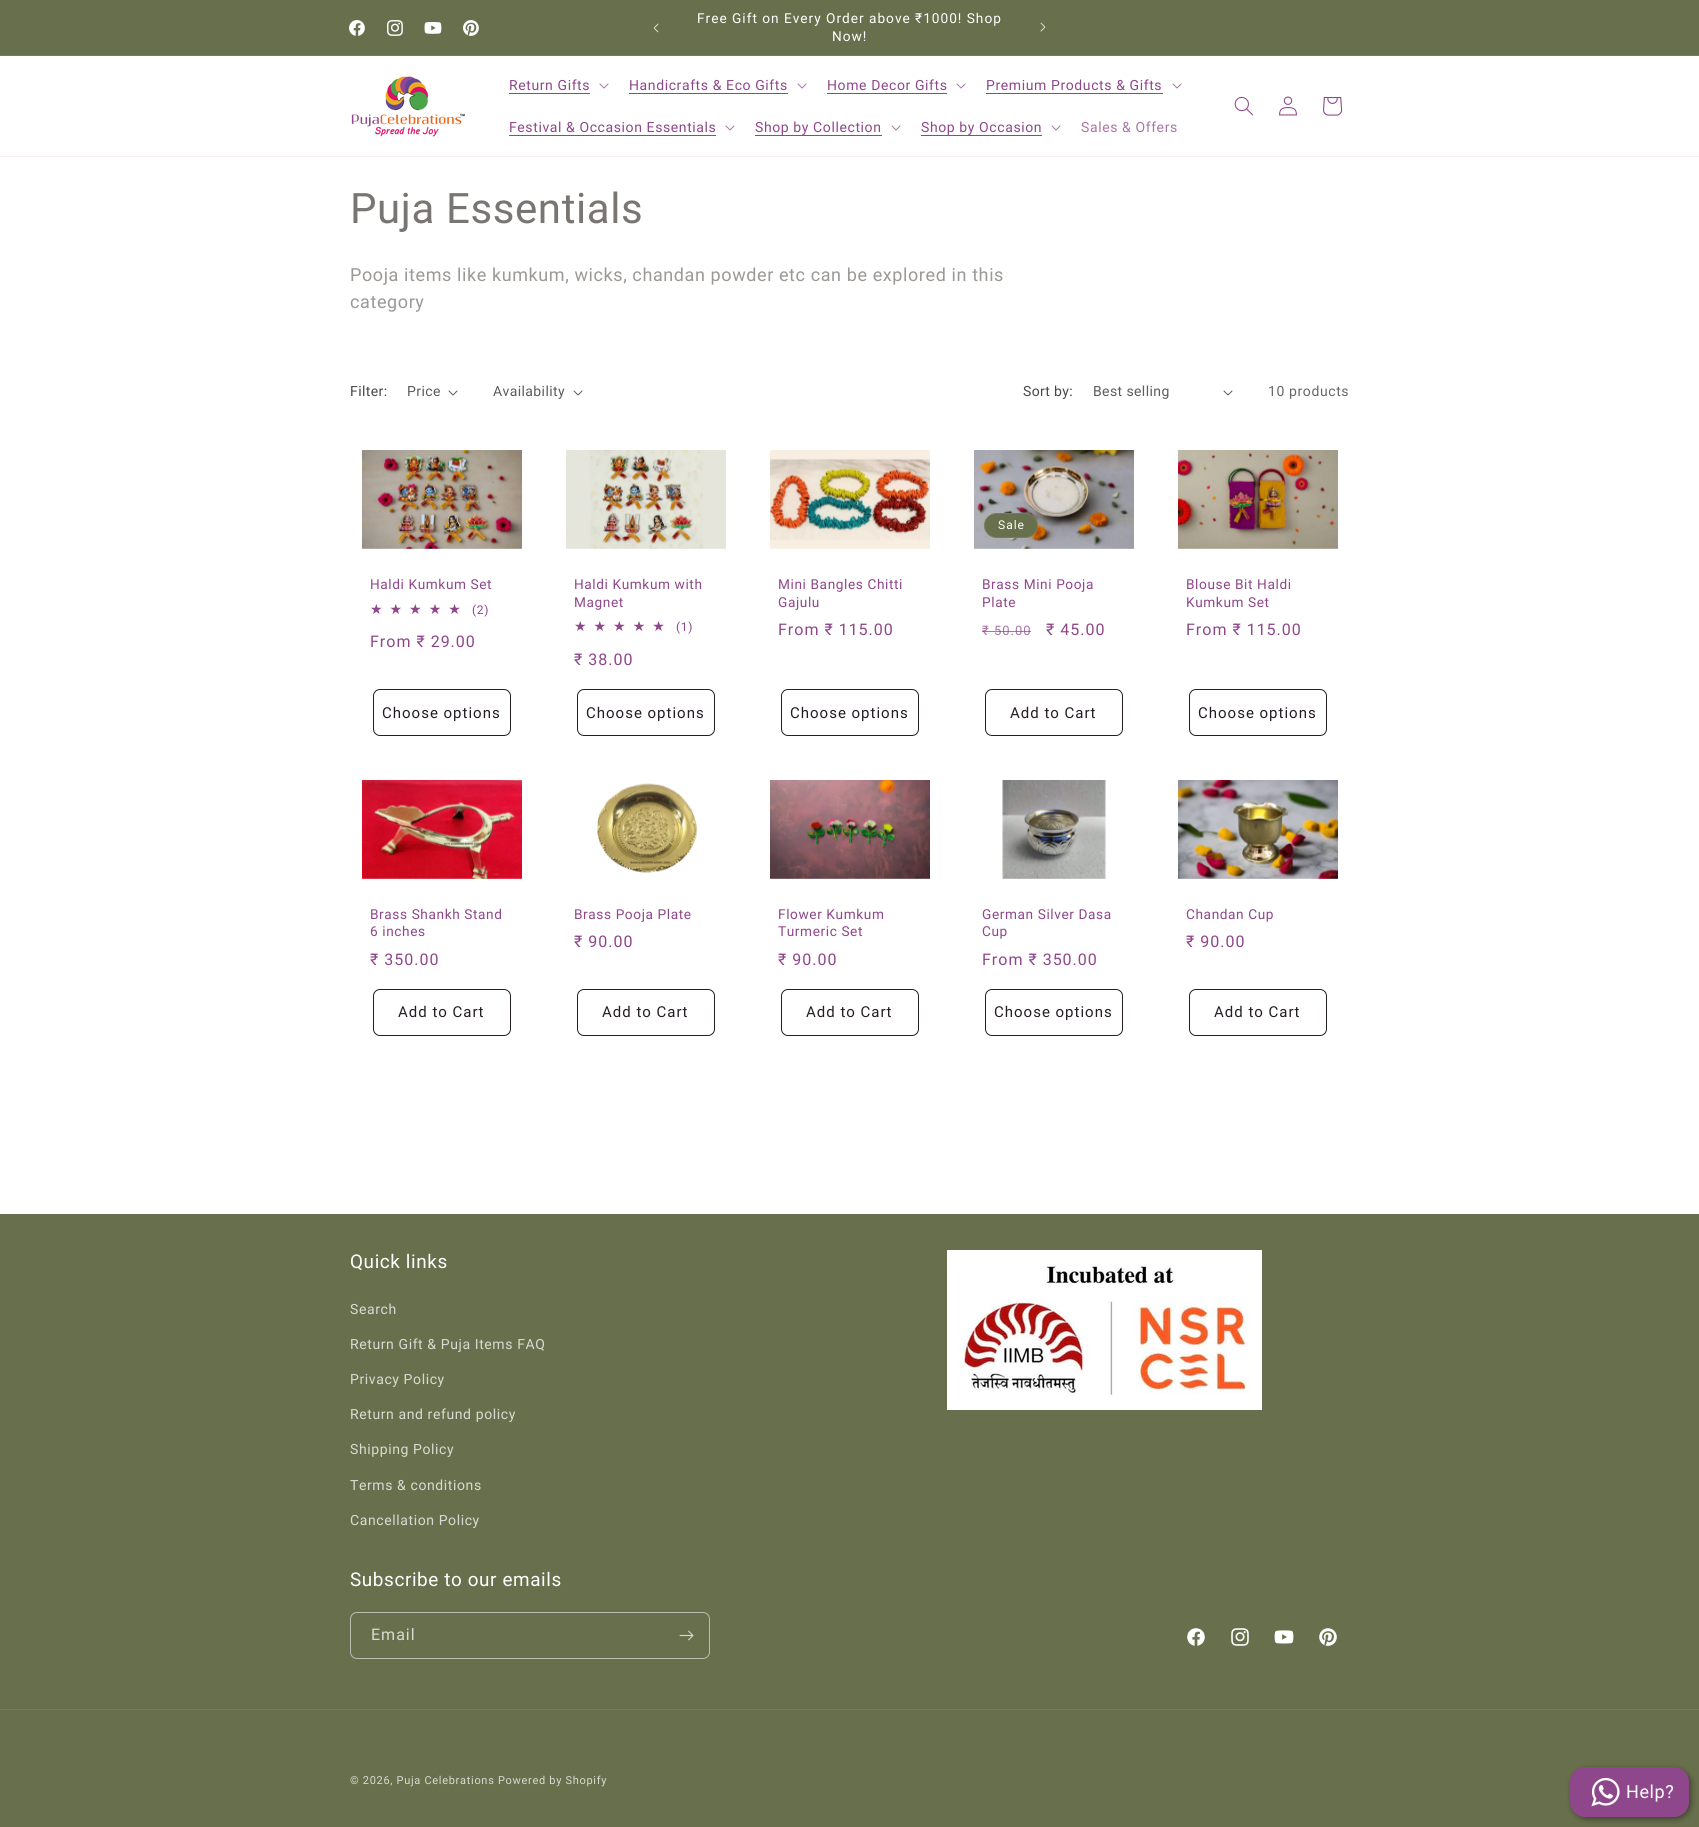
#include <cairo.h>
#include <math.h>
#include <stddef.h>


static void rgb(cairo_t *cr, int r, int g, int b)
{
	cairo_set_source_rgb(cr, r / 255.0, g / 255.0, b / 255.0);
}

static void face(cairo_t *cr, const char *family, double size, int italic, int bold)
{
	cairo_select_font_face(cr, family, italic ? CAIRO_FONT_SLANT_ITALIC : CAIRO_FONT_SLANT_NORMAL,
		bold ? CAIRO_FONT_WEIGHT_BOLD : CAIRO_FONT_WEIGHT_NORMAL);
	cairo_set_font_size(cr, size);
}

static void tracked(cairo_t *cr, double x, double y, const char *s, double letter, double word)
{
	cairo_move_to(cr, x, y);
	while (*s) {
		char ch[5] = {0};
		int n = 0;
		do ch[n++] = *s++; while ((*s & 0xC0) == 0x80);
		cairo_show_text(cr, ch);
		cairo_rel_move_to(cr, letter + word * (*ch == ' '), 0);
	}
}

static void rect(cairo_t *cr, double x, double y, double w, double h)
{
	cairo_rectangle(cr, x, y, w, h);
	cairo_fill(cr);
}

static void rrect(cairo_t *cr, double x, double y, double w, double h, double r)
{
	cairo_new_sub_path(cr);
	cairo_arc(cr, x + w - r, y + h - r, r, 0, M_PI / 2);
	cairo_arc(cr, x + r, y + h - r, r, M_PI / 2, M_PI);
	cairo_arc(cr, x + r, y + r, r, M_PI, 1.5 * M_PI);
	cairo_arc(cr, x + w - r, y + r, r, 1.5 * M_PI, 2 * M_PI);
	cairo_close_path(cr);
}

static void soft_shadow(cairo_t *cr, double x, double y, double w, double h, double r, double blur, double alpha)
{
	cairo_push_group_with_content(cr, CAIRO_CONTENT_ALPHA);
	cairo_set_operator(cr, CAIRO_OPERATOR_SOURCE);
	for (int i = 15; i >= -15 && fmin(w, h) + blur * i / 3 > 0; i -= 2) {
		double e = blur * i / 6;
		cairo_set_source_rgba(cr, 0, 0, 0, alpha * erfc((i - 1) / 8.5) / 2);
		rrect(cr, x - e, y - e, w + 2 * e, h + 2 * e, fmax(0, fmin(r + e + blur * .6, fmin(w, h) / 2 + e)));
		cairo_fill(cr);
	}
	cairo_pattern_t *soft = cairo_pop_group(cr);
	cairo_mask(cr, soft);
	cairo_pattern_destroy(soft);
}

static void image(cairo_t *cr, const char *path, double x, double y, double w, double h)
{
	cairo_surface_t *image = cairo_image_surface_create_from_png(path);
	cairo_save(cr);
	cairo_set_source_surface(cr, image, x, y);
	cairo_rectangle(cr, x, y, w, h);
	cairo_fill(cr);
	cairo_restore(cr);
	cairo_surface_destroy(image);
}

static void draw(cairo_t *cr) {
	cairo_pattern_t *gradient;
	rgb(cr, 255, 255, 255);
	cairo_paint(cr);
	rgb(cr, 103, 111, 76);
	rect(cr, 0, 0, 1699, 55);
	rgb(cr, 115, 123, 90);
	rect(cr, 0, 55, 1699, 1);
	image(cr, "image0.png", 349, 20, 16, 16);
	image(cr, "image1.png", 387, 20, 16, 16);
	image(cr, "image2.png", 424, 22, 18, 12);
	image(cr, "image3.png", 463, 20, 16, 16);
	image(cr, "image4.png", 653, 23, 6, 10);
	face(cr, "Roboto", 13.65, 0, 0);
	rgb(cr, 255, 255, 255);
	tracked(cr, 697, 23, "Free Gift on Every Order above ₹1000! Shop", 1, 0);
	tracked(cr, 832, 41, "Now!", 1, 0);
	image(cr, "image5.png", 1040, 22, 6, 10);
	rgb(cr, 246, 240, 246);
	rect(cr, 0, 156, 1699, 1);
	image(cr, "image6.png", 351, 76, 114, 61);
	face(cr, "Roboto", 14, 0, 0);
	rgb(cr, 143, 71, 139);
	tracked(cr, 509, 90, "Return Gifts", 0.6, 0);
	rect(cr, 509, 93, 81, 1);
	image(cr, "image7.png", 599, 83, 10, 6);
	tracked(cr, 629, 90, "Handicrafts & Eco Gifts", 0.6, 0);
	rect(cr, 629, 93, 159, 1);
	image(cr, "image7.png", 797, 83, 10, 6);
	tracked(cr, 827, 90, "Home Decor Gifts", 0.6, 0);
	rect(cr, 827, 93, 120, 1);
	image(cr, "image7.png", 956, 83, 10, 6);
	tracked(cr, 986, 90, "Premium Products & Gifts", 0.6, 0);
	rect(cr, 986, 93, 177, 1);
	image(cr, "image7.png", 1172, 83, 10, 6);
	tracked(cr, 509, 132, "Festival & Occasion Essentials", 0.6, 0);
	rect(cr, 509, 135, 207, 1);
	image(cr, "image7.png", 725, 125, 10, 6);
	tracked(cr, 755, 132, "Shop by Collection", 0.6, 0);
	rect(cr, 755, 135, 127, 1);
	image(cr, "image7.png", 891, 125, 10, 6);
	tracked(cr, 921, 132, "Shop by Occasion", 0.6, 0);
	rect(cr, 921, 135, 121, 1);
	image(cr, "image7.png", 1051, 125, 10, 6);
	rgb(cr, 171, 117, 168);
	tracked(cr, 1081, 132, "Sales & Offers", 0.6, 0);
	image(cr, "image8.png", 1234, 96, 19, 20);
	image(cr, "image9.png", 1279, 96, 18, 20);
	image(cr, "image10.png", 1323, 97, 20, 19);
	face(cr, "Roboto", 42, 0, 0);
	rgb(cr, 121, 117, 114);
	tracked(cr, 350, 223, "Puja Essentials", 0.6, 0);
	face(cr, "Roboto", 18, 0, 0);
	rgb(cr, 155, 152, 149);
	tracked(cr, 350, 281, "Pooja items like kumkum, wicks, chandan powder etc can be explored in this", 0.6, 0);
	tracked(cr, 350, 308, "category", 0.6, 0);
	face(cr, "Roboto", 14, 0, 0);
	rgb(cr, 71, 71, 71);
	tracked(cr, 350, 396, "Filter:", 0.4, 0);
	rgb(cr, 92, 92, 92);
	tracked(cr, 407, 396, "Price", 0.4, 0);
	image(cr, "image11.png", 448, 390, 10, 6);
	tracked(cr, 493, 396, "Availability", 0.4, 0);
	image(cr, "image11.png", 573, 390, 10, 6);
	rgb(cr, 71, 71, 71);
	tracked(cr, 1023, 396, "Sort by:", 0.4, 0);
	rgb(cr, 92, 92, 92);
	tracked(cr, 1093, 396, "Best selling", 0.4, 0);
	image(cr, "image11.png", 1223, 390, 10, 6);
	rgb(cr, 103, 103, 103);
	tracked(cr, 1268, 396, "10 products", 0.6, 0);
	image(cr, "image12.png", 362, 450, 160, 99);
	face(cr, "Roboto", 13.65, 0, 0);
	rgb(cr, 143, 71, 139);
	tracked(cr, 370, 589, "Haldi Kumkum Set", 0.6, 0);
	face(cr, "DejaVu Sans", 14, 0, 0);
	gradient = cairo_pattern_create_linear(370, 609, 467, 609);
	cairo_pattern_add_color_stop_rgba(gradient, 1, 0.561, 0.278, 0.545, 1);
	cairo_pattern_add_color_stop_rgba(gradient, 1, 0.933, 0.89, 0.933, 1);
	cairo_set_source(cr, gradient);
	cairo_pattern_destroy(gradient);
	tracked(cr, 370, 614, "★★★★★", 7, 0);
	face(cr, "Roboto", 12, 0, 0);
	rgb(cr, 143, 71, 139);
	tracked(cr, 472, 614, "(2)", 0.7, 0);
	face(cr, "Roboto", 16, 0, 0);
	tracked(cr, 370, 647, "From ₹ 29.00", 1, 0);
	rrect(cr, 373.5, 689.5, 137, 46, 6.5);
	rgb(cr, 36, 30, 36);
	cairo_set_line_width(cr, 1);
	cairo_stroke(cr);
	face(cr, "Roboto", 15, 0, 0);
	tracked(cr, 382, 718, "Choose options", 1, 0);
	image(cr, "image13.png", 566, 450, 160, 99);
	face(cr, "Roboto", 13.65, 0, 0);
	rgb(cr, 143, 71, 139);
	tracked(cr, 574, 589, "Haldi Kumkum with", 0.6, 0);
	tracked(cr, 574, 607, "Magnet", 0.6, 0);
	face(cr, "DejaVu Sans", 14, 0, 0);
	gradient = cairo_pattern_create_linear(574, 627, 671, 627);
	cairo_pattern_add_color_stop_rgba(gradient, 1, 0.561, 0.278, 0.545, 1);
	cairo_pattern_add_color_stop_rgba(gradient, 1, 0.933, 0.89, 0.933, 1);
	cairo_set_source(cr, gradient);
	cairo_pattern_destroy(gradient);
	tracked(cr, 574, 631, "★★★★★", 7, 0);
	face(cr, "Roboto", 12, 0, 0);
	rgb(cr, 143, 71, 139);
	tracked(cr, 676, 631, "(1)", 0.7, 0);
	face(cr, "Roboto", 16, 0, 0);
	tracked(cr, 574, 665, "₹ 38.00", 1, 0);
	rrect(cr, 577.5, 689.5, 137, 46, 6.5);
	rgb(cr, 36, 30, 36);
	cairo_stroke(cr);
	face(cr, "Roboto", 15, 0, 0);
	tracked(cr, 586, 718, "Choose options", 1, 0);
	image(cr, "image14.png", 770, 450, 160, 99);
	face(cr, "Roboto", 13.65, 0, 0);
	rgb(cr, 143, 71, 139);
	tracked(cr, 778, 589, "Mini Bangles Chitti", 0.6, 0);
	tracked(cr, 778, 607, "Gajulu", 0.6, 0);
	face(cr, "Roboto", 16, 0, 0);
	tracked(cr, 778, 635, "From ₹ 115.00", 1, 0);
	rrect(cr, 781.5, 689.5, 137, 46, 6.5);
	rgb(cr, 36, 30, 36);
	cairo_stroke(cr);
	face(cr, "Roboto", 15, 0, 0);
	tracked(cr, 790, 718, "Choose options", 1, 0);
	image(cr, "image15.png", 974, 450, 160, 99);
	rgb(cr, 103, 111, 76);
	rrect(cr, 984, 513, 54, 25, 12.5);
	cairo_fill(cr);
	rrect(cr, 984.5, 513.5, 53, 24, 12);
	cairo_set_source_rgba(cr, 1, 1, 1, 0.1);
	cairo_stroke(cr);
	face(cr, "Roboto", 12, 0, 0);
	rgb(cr, 255, 255, 255);
	tracked(cr, 998, 529, "Sale", 1, 0);
	face(cr, "Roboto", 13.65, 0, 0);
	rgb(cr, 143, 71, 139);
	tracked(cr, 982, 589, "Brass Mini Pooja", 0.6, 0);
	tracked(cr, 982, 607, "Plate", 0.6, 0);
	face(cr, "Roboto", 13, 0, 0);
	rgb(cr, 171, 117, 168);
	tracked(cr, 982, 635, "₹ 50.00", 1, 0);
	cairo_set_source_rgba(cr, 0.561, 0.278, 0.545, 0.75);
	rect(cr, 982, 631, 49, 1);
	face(cr, "Roboto", 16, 0, 0);
	rgb(cr, 143, 71, 139);
	tracked(cr, 1046, 635, "₹ 45.00", 1, 0);
	rrect(cr, 985.5, 689.5, 137, 46, 6.5);
	rgb(cr, 36, 30, 36);
	cairo_stroke(cr);
	face(cr, "Roboto", 15, 0, 0);
	tracked(cr, 1010, 718, "Add to Cart", 1, 0);
	image(cr, "image16.png", 1178, 450, 160, 99);
	face(cr, "Roboto", 13.65, 0, 0);
	rgb(cr, 143, 71, 139);
	tracked(cr, 1186, 589, "Blouse Bit Haldi", 0.6, 0);
	tracked(cr, 1186, 607, "Kumkum Set", 0.6, 0);
	face(cr, "Roboto", 16, 0, 0);
	tracked(cr, 1186, 635, "From ₹ 115.00", 1, 0);
	rrect(cr, 1189.5, 689.5, 137, 46, 6.5);
	rgb(cr, 36, 30, 36);
	cairo_stroke(cr);
	face(cr, "Roboto", 15, 0, 0);
	tracked(cr, 1198, 718, "Choose options", 1, 0);
	image(cr, "image17.png", 362, 780, 160, 99);
	face(cr, "Roboto", 13.65, 0, 0);
	rgb(cr, 143, 71, 139);
	tracked(cr, 370, 919, "Brass Shankh Stand", 0.6, 0);
	tracked(cr, 370, 936, "6 inches", 0.6, 0);
	face(cr, "Roboto", 16, 0, 0);
	tracked(cr, 370, 965, "₹ 350.00", 1, 0);
	rrect(cr, 373.5, 989.5, 137, 46, 6.5);
	rgb(cr, 36, 30, 36);
	cairo_stroke(cr);
	face(cr, "Roboto", 15, 0, 0);
	tracked(cr, 398, 1017, "Add to Cart", 1, 0);
	image(cr, "image18.png", 597, 783, 101, 90);
	face(cr, "Roboto", 13.65, 0, 0);
	rgb(cr, 143, 71, 139);
	tracked(cr, 574, 919, "Brass Pooja Plate", 0.6, 0);
	face(cr, "Roboto", 16, 0, 0);
	tracked(cr, 574, 947, "₹ 90.00", 1, 0);
	rrect(cr, 577.5, 989.5, 137, 46, 6.5);
	rgb(cr, 36, 30, 36);
	cairo_stroke(cr);
	face(cr, "Roboto", 15, 0, 0);
	tracked(cr, 602, 1017, "Add to Cart", 1, 0);
	image(cr, "image19.png", 770, 780, 160, 99);
	face(cr, "Roboto", 13.65, 0, 0);
	rgb(cr, 143, 71, 139);
	tracked(cr, 778, 919, "Flower Kumkum", 0.6, 0);
	tracked(cr, 778, 936, "Turmeric Set", 0.6, 0);
	face(cr, "Roboto", 16, 0, 0);
	tracked(cr, 778, 965, "₹ 90.00", 1, 0);
	rrect(cr, 781.5, 989.5, 137, 46, 6.5);
	rgb(cr, 36, 30, 36);
	cairo_stroke(cr);
	face(cr, "Roboto", 15, 0, 0);
	tracked(cr, 806, 1017, "Add to Cart", 1, 0);
	image(cr, "image20.png", 1002, 780, 104, 99);
	face(cr, "Roboto", 13.65, 0, 0);
	rgb(cr, 143, 71, 139);
	tracked(cr, 982, 919, "German Silver Dasa", 0.6, 0);
	tracked(cr, 982, 936, "Cup", 0.6, 0);
	face(cr, "Roboto", 16, 0, 0);
	tracked(cr, 982, 965, "From ₹ 350.00", 1, 0);
	rrect(cr, 985.5, 989.5, 137, 46, 6.5);
	rgb(cr, 36, 30, 36);
	cairo_stroke(cr);
	face(cr, "Roboto", 15, 0, 0);
	tracked(cr, 994, 1017, "Choose options", 1, 0);
	image(cr, "image21.png", 1178, 780, 160, 99);
	face(cr, "Roboto", 13.65, 0, 0);
	rgb(cr, 143, 71, 139);
	tracked(cr, 1186, 919, "Chandan Cup", 0.6, 0);
	face(cr, "Roboto", 16, 0, 0);
	tracked(cr, 1186, 947, "₹ 90.00", 1, 0);
	rrect(cr, 1189.5, 989.5, 137, 46, 6.5);
	rgb(cr, 36, 30, 36);
	cairo_stroke(cr);
	face(cr, "Roboto", 15, 0, 0);
	tracked(cr, 1214, 1017, "Add to Cart", 1, 0);
	rgb(cr, 103, 111, 76);
	rect(cr, 0, 1214, 1699, 613);
	face(cr, "Roboto", 18.9, 0, 0);
	rgb(cr, 255, 255, 255);
	tracked(cr, 350, 1268, "Quick links", 0.6, 0);
	face(cr, "Roboto", 14, 0, 0);
	rgb(cr, 217, 219, 210);
	tracked(cr, 350, 1314, "Search", 0.6, 0);
	tracked(cr, 350, 1349, "Return Gift & Puja Items FAQ", 0.6, 0);
	tracked(cr, 350, 1384, "Privacy Policy", 0.6, 0);
	tracked(cr, 350, 1419, "Return and refund policy", 0.6, 0);
	tracked(cr, 350, 1454, "Shipping Policy", 0.6, 0);
	tracked(cr, 350, 1490, "Terms & conditions", 0.6, 0);
	tracked(cr, 350, 1525, "Cancellation Policy", 0.6, 0);
	image(cr, "image22.png", 947, 1250, 315, 160);
	face(cr, "Roboto", 18.9, 0, 0);
	rgb(cr, 255, 255, 255);
	tracked(cr, 350, 1586, "Subscribe to our emails", 0.6, 0);
	rrect(cr, 350.5, 1612.5, 359, 46, 6.5);
	rgb(cr, 187, 190, 174);
	cairo_stroke(cr);
	face(cr, "Roboto", 16, 0, 0);
	rgb(cr, 217, 219, 210);
	tracked(cr, 371, 1640, "Email", 1, 0);
	image(cr, "image23.png", 679, 1630, 15, 11);
	image(cr, "image24.png", 1187, 1628, 18, 18);
	image(cr, "image25.png", 1231, 1628, 18, 18);
	image(cr, "image26.png", 1274, 1630, 20, 14);
	image(cr, "image27.png", 1319, 1628, 18, 18);
	rgb(cr, 115, 123, 90);
	rect(cr, 0, 1709, 1699, 1);
	face(cr, "Roboto", 11, 0, 0);
	rgb(cr, 217, 219, 210);
	tracked(cr, 350, 1784, "© 2026, Puja Celebrations Powered by Shopify", 0.7, 0);
	rgb(cr, 0, 0, 0);
	soft_shadow(cr, 1572, 1769, 119, 50, 15, 3, 0.4);
	rgb(cr, 143, 71, 139);
	rrect(cr, 1570, 1767, 119, 50, 15);
	cairo_fill(cr);
	image(cr, "image28.png", 1591, 1777, 29, 30);
	face(cr, "Roboto", 18, 0, 0);
	rgb(cr, 255, 255, 255);
	tracked(cr, 1626, 1798, "Help?", 0.6, 0);
}

int main(void) {
	cairo_surface_t *surface = cairo_image_surface_create(CAIRO_FORMAT_RGB24, 1699, 1827);
	cairo_t *cr = cairo_create(surface);
	cairo_font_options_t *options = cairo_font_options_create();
	cairo_font_options_set_hint_metrics(options, CAIRO_HINT_METRICS_OFF);
	cairo_font_options_set_hint_style(options, CAIRO_HINT_STYLE_NONE);
	cairo_set_font_options(cr, options);
	cairo_set_miter_limit(cr, 4);
	draw(cr);
	cairo_surface_write_to_png(surface, "render.png");
	cairo_font_options_destroy(options);
	cairo_destroy(cr);
	cairo_surface_destroy(surface);
	return 0;
}
